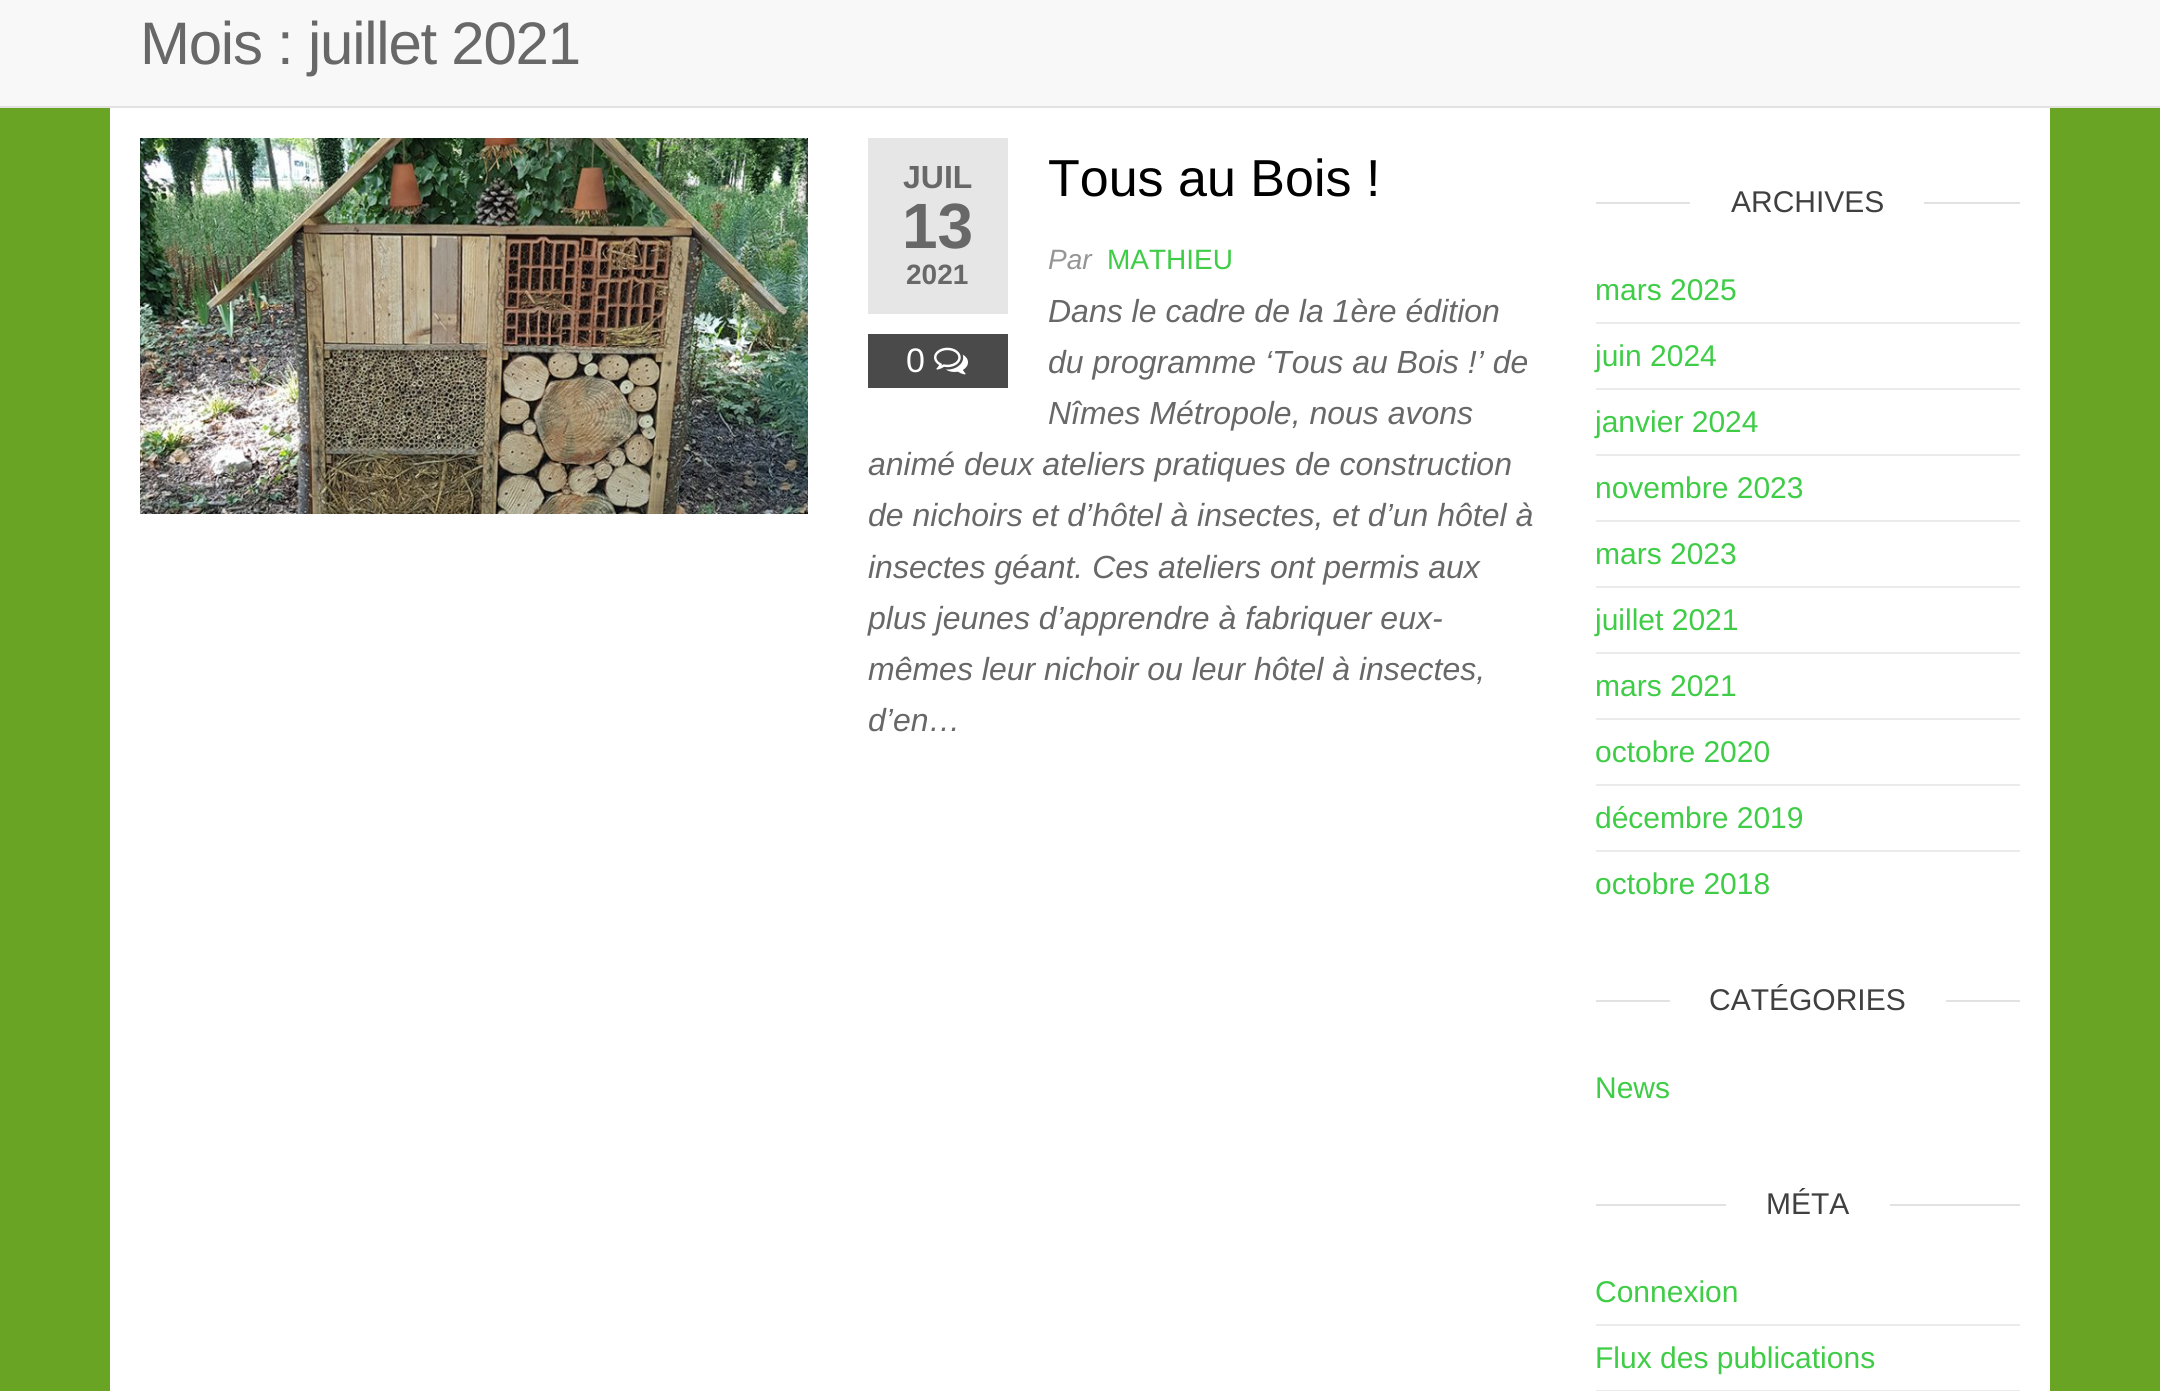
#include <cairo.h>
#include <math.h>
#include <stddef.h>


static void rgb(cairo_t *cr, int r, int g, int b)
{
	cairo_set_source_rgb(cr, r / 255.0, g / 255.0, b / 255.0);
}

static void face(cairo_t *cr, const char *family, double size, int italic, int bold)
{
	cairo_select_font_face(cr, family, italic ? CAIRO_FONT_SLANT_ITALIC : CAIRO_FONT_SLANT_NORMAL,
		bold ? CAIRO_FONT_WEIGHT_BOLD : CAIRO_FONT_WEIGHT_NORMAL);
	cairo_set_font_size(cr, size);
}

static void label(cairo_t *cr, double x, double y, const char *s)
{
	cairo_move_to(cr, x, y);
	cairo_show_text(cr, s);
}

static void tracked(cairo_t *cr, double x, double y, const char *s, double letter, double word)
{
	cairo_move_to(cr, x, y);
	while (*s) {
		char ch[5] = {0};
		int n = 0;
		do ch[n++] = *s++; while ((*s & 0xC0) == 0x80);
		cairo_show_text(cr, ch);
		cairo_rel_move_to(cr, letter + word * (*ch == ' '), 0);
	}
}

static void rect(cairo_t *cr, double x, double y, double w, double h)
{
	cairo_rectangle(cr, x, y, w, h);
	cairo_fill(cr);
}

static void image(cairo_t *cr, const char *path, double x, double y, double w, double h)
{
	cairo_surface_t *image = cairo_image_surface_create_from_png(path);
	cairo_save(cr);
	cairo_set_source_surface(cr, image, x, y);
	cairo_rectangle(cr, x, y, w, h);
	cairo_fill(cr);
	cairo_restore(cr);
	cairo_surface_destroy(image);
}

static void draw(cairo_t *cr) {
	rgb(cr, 105, 164, 36);
	cairo_paint(cr);
	rgb(cr, 248, 248, 248);
	rect(cr, 0, 0, 2160, 106);
	rgb(cr, 226, 226, 226);
	rect(cr, 0, 106, 2160, 2);
	face(cr, "Liberation Sans", 60, 0, 0);
	rgb(cr, 104, 104, 104);
	tracked(cr, 140, 64, "Mois : juillet 2021", -1.25, 0);
	rgb(cr, 255, 255, 255);
	rect(cr, 110, 108, 1940, 1283);
	image(cr, "image0.png", 140, 138, 668, 376);
	rgb(cr, 230, 230, 230);
	rect(cr, 868, 138, 140, 176);
	face(cr, "Liberation Sans", 32, 0, 1);
	rgb(cr, 104, 104, 104);
	label(cr, 903, 188, "JUIL");
	face(cr, "Liberation Sans", 64, 0, 1);
	label(cr, 902, 248, "13");
	face(cr, "Liberation Sans", 28, 0, 1);
	label(cr, 906, 284, "2021");
	rgb(cr, 74, 74, 74);
	rect(cr, 868, 334, 140, 54);
	face(cr, "Liberation Sans", 34, 0, 0);
	rgb(cr, 255, 255, 255);
	label(cr, 906, 372, "0");
	image(cr, "image1.png", 934, 347, 34, 28);
	face(cr, "Liberation Sans", 52, 0, 0);
	rgb(cr, 0, 0, 0);
	label(cr, 1048, 196, "Tous au Bois !");
	face(cr, "Liberation Sans", 28, 1, 0);
	rgb(cr, 149, 149, 149);
	label(cr, 1048, 269, "Par");
	face(cr, "Liberation Sans", 28, 0, 0);
	rgb(cr, 63, 204, 70);
	label(cr, 1107, 269, "MATHIEU");
	face(cr, "Liberation Sans", 32, 1, 0);
	rgb(cr, 104, 104, 104);
	label(cr, 1048, 322, "Dans le cadre de la 1ère édition");
	label(cr, 1048, 373, "du programme ‘Tous au Bois !’ de");
	label(cr, 1048, 424, "Nîmes Métropole, nous avons");
	label(cr, 868, 475, "animé deux ateliers pratiques de construction");
	label(cr, 868, 526, "de nichoirs et d’hôtel à insectes, et d’un hôtel à");
	label(cr, 868, 578, "insectes géant. Ces ateliers ont permis aux");
	label(cr, 868, 629, "plus jeunes d’apprendre à fabriquer eux-");
	label(cr, 868, 680, "mêmes leur nichoir ou leur hôtel à insectes,");
	label(cr, 868, 731, "d’en…");
	rgb(cr, 226, 226, 226);
	rect(cr, 1596, 202, 424, 2);
	rgb(cr, 255, 255, 255);
	rect(cr, 1690, 202, 234, 2);
	face(cr, "Liberation Sans", 30, 0, 0);
	rgb(cr, 64, 64, 64);
	label(cr, 1731, 212, "ARCHIVES");
	rgb(cr, 235, 235, 235);
	rect(cr, 1596, 322, 424, 2);
	rgb(cr, 63, 204, 70);
	label(cr, 1595, 300, "mars 2025");
	rgb(cr, 235, 235, 235);
	rect(cr, 1596, 388, 424, 2);
	rgb(cr, 63, 204, 70);
	label(cr, 1595, 366, "juin 2024");
	rgb(cr, 235, 235, 235);
	rect(cr, 1596, 454, 424, 2);
	rgb(cr, 63, 204, 70);
	label(cr, 1595, 432, "janvier 2024");
	rgb(cr, 235, 235, 235);
	rect(cr, 1596, 520, 424, 2);
	rgb(cr, 63, 204, 70);
	label(cr, 1595, 498, "novembre 2023");
	rgb(cr, 235, 235, 235);
	rect(cr, 1596, 586, 424, 2);
	rgb(cr, 63, 204, 70);
	label(cr, 1595, 564, "mars 2023");
	rgb(cr, 235, 235, 235);
	rect(cr, 1596, 652, 424, 2);
	rgb(cr, 63, 204, 70);
	label(cr, 1595, 630, "juillet 2021");
	rgb(cr, 235, 235, 235);
	rect(cr, 1596, 718, 424, 2);
	rgb(cr, 63, 204, 70);
	label(cr, 1595, 696, "mars 2021");
	rgb(cr, 235, 235, 235);
	rect(cr, 1596, 784, 424, 2);
	rgb(cr, 63, 204, 70);
	label(cr, 1595, 762, "octobre 2020");
	rgb(cr, 235, 235, 235);
	rect(cr, 1596, 850, 424, 2);
	rgb(cr, 63, 204, 70);
	label(cr, 1595, 828, "décembre 2019");
	label(cr, 1595, 894, "octobre 2018");
	rgb(cr, 226, 226, 226);
	rect(cr, 1596, 1000, 424, 2);
	rgb(cr, 255, 255, 255);
	rect(cr, 1670, 1000, 276, 2);
	rgb(cr, 64, 64, 64);
	label(cr, 1709, 1010, "CATÉGORIES");
	rgb(cr, 63, 204, 70);
	label(cr, 1595, 1098, "News");
	rgb(cr, 226, 226, 226);
	rect(cr, 1596, 1204, 424, 2);
	rgb(cr, 255, 255, 255);
	rect(cr, 1726, 1204, 164, 2);
	rgb(cr, 64, 64, 64);
	label(cr, 1766, 1214, "MÉTA");
	rgb(cr, 235, 235, 235);
	rect(cr, 1596, 1324, 424, 2);
	rgb(cr, 63, 204, 70);
	label(cr, 1595, 1302, "Connexion");
	rgb(cr, 235, 235, 235);
	rect(cr, 1596, 1390, 424, 1);
	rgb(cr, 63, 204, 70);
	label(cr, 1595, 1368, "Flux des publications");
}

int main(void) {
	cairo_surface_t *surface = cairo_image_surface_create(CAIRO_FORMAT_RGB24, 2160, 1391);
	cairo_t *cr = cairo_create(surface);
	cairo_font_options_t *options = cairo_font_options_create();
	cairo_font_options_set_hint_metrics(options, CAIRO_HINT_METRICS_OFF);
	cairo_font_options_set_hint_style(options, CAIRO_HINT_STYLE_NONE);
	cairo_set_font_options(cr, options);
	cairo_set_miter_limit(cr, 4);
	draw(cr);
	cairo_surface_write_to_png(surface, "render.png");
	cairo_font_options_destroy(options);
	cairo_destroy(cr);
	cairo_surface_destroy(surface);
	return 0;
}
